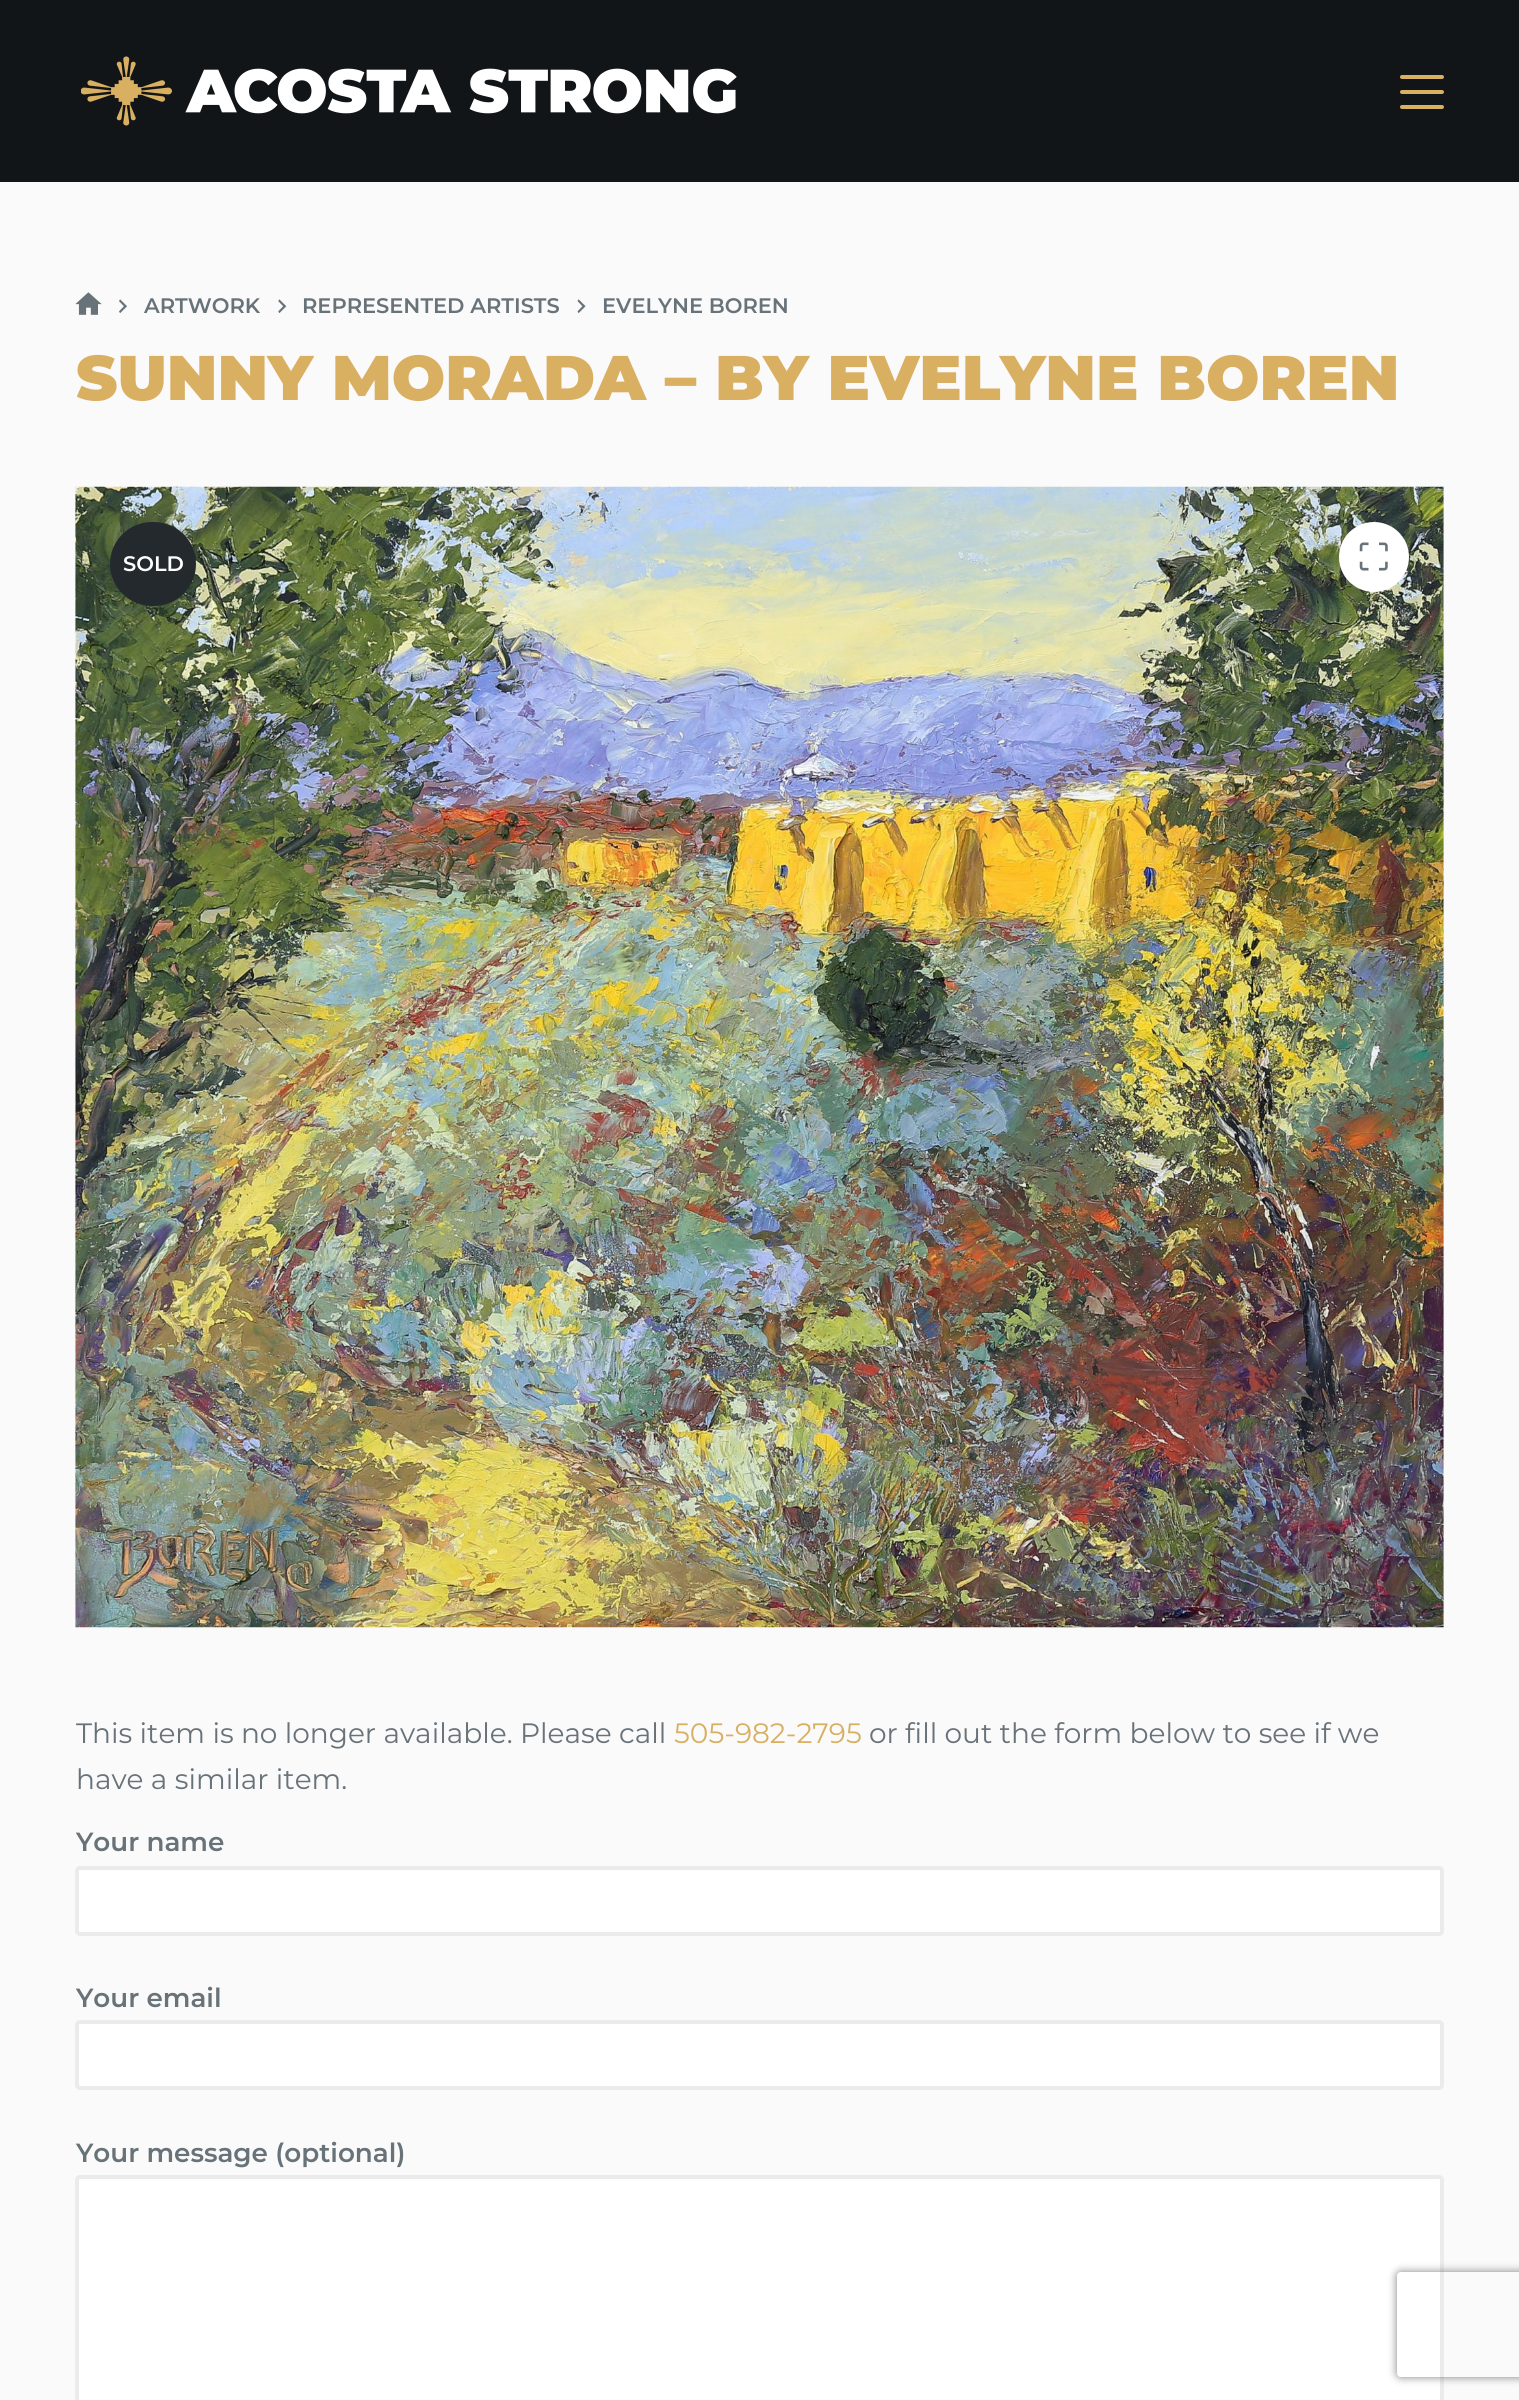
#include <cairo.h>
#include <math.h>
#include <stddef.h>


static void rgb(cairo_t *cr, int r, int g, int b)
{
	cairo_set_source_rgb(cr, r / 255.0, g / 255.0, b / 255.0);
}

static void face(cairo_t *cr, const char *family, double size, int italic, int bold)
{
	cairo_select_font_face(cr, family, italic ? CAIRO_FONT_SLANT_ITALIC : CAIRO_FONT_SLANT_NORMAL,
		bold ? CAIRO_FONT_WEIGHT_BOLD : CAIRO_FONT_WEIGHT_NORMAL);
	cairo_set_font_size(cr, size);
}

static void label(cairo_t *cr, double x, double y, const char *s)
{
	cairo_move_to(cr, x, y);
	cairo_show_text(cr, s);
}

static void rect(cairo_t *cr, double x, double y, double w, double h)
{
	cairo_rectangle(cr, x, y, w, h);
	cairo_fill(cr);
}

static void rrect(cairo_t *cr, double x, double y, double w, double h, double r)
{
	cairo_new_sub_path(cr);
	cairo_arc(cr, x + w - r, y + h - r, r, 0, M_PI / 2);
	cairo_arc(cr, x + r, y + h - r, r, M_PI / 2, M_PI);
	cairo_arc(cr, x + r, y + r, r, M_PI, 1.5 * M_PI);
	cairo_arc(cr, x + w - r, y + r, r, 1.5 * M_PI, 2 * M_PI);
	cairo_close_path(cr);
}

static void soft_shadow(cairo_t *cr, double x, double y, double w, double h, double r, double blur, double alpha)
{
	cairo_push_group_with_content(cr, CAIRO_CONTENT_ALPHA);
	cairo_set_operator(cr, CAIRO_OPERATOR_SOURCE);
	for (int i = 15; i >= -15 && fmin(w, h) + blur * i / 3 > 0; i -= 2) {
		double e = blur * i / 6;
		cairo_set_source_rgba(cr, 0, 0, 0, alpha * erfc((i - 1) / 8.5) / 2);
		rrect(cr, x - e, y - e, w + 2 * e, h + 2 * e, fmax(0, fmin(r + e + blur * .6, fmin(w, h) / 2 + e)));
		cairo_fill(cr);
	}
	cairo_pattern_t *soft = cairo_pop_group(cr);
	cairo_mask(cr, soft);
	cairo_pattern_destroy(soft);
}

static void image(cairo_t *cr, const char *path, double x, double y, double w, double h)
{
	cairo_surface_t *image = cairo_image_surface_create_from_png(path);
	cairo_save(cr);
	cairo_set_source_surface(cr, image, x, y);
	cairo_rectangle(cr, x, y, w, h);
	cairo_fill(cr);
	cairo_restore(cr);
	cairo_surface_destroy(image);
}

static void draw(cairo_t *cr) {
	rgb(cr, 250, 250, 250);
	cairo_paint(cr);
	rgb(cr, 17, 21, 24);
	rect(cr, 0, 0, 1519, 182);
	image(cr, "image0.png", 81, 56, 656, 70);
	rgb(cr, 217, 175, 98);
	rrect(cr, 1400, 75, 44, 4, 2);
	cairo_fill(cr);
	rrect(cr, 1400, 90, 44, 4, 2);
	cairo_fill(cr);
	rrect(cr, 1400, 105, 44, 4, 2);
	cairo_fill(cr);
	image(cr, "image1.png", 75, 292, 27, 23);
	image(cr, "image2.png", 119, 299, 8, 14);
	face(cr, "Montserrat SemiBold", 21, 0, 0);
	rgb(cr, 104, 114, 121);
	label(cr, 144, 313, "ARTWORK");
	image(cr, "image3.png", 278, 299, 9, 14);
	label(cr, 302, 313, "REPRESENTED ARTISTS");
	image(cr, "image4.png", 577, 299, 9, 14);
	label(cr, 602, 313, "EVELYNE BOREN");
	face(cr, "Montserrat Black", 63, 0, 0);
	rgb(cr, 217, 175, 98);
	label(cr, 76, 400, "SUNNY MORADA – BY EVELYNE BOREN");
	image(cr, "image5.png", 75, 486, 1369, 1142);
	rgb(cr, 36, 41, 46);
	rrect(cr, 110, 522, 86, 84, 42);
	cairo_fill(cr);
	face(cr, "Montserrat SemiBold", 21, 0, 0);
	rgb(cr, 255, 255, 255);
	label(cr, 123, 571, "SOLD");
	cairo_new_path(cr);
	cairo_arc(cr, 1374, 557, 35, 0, 2 * M_PI);
	cairo_fill(cr);
	image(cr, "image6.png", 1359, 542, 29, 29);
	face(cr, "Montserrat", 28, 0, 0);
	rgb(cr, 104, 114, 121);
	label(cr, 76, 1743, "This item is no longer available. Please call");
	rgb(cr, 217, 175, 98);
	label(cr, 674, 1743, "505-982-2795");
	rgb(cr, 104, 114, 121);
	label(cr, 869, 1743, "or fill out the form below to see if we");
	label(cr, 76, 1789, "have a similar item.");
	face(cr, "Montserrat SemiBold", 26.25, 0, 0);
	label(cr, 76, 1851, "Your name");
	rgb(cr, 255, 255, 255);
	rrect(cr, 77, 1868, 1365, 66, 3);
	cairo_fill_preserve(cr);
	rgb(cr, 233, 235, 236);
	cairo_set_line_width(cr, 4);
	cairo_stroke(cr);
	rgb(cr, 104, 114, 121);
	label(cr, 76, 2007, "Your email");
	rgb(cr, 255, 255, 255);
	rrect(cr, 77, 2022, 1365, 66, 3);
	cairo_fill_preserve(cr);
	rgb(cr, 233, 235, 236);
	cairo_stroke(cr);
	rgb(cr, 104, 114, 121);
	label(cr, 76, 2162, "Your message (optional)");
	rgb(cr, 255, 255, 255);
	rrect(cr, 77, 2177, 1365, 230, 3);
	cairo_fill_preserve(cr);
	rgb(cr, 233, 235, 236);
	cairo_stroke(cr);
	cairo_save(cr);
	cairo_set_fill_rule(cr, CAIRO_FILL_RULE_EVEN_ODD);
	cairo_new_path(cr);
	cairo_move_to(cr, 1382, 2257);
	cairo_line_to(cr, 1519, 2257);
	cairo_line_to(cr, 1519, 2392);
	cairo_line_to(cr, 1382, 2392);
	cairo_close_path(cr);
	cairo_move_to(cr, 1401, 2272);
	cairo_line_to(cr, 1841, 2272);
	cairo_curve_to(cr, 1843, 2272, 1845, 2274, 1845, 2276);
	cairo_line_to(cr, 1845, 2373);
	cairo_curve_to(cr, 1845, 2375, 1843, 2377, 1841, 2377);
	cairo_line_to(cr, 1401, 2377);
	cairo_curve_to(cr, 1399, 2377, 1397, 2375, 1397, 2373);
	cairo_line_to(cr, 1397, 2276);
	cairo_curve_to(cr, 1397, 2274, 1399, 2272, 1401, 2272);
	cairo_close_path(cr);
	cairo_clip(cr);
	rgb(cr, 128, 128, 128);
	soft_shadow(cr, 1397, 2272, 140, 105, 4, 4.5, 1);
	cairo_restore(cr);
}

int main(void) {
	cairo_surface_t *surface = cairo_image_surface_create(CAIRO_FORMAT_RGB24, 1519, 2400);
	cairo_t *cr = cairo_create(surface);
	cairo_font_options_t *options = cairo_font_options_create();
	cairo_font_options_set_hint_metrics(options, CAIRO_HINT_METRICS_OFF);
	cairo_font_options_set_hint_style(options, CAIRO_HINT_STYLE_NONE);
	cairo_set_font_options(cr, options);
	cairo_set_miter_limit(cr, 4);
	draw(cr);
	cairo_surface_write_to_png(surface, "render.png");
	cairo_font_options_destroy(options);
	cairo_destroy(cr);
	cairo_surface_destroy(surface);
	return 0;
}
